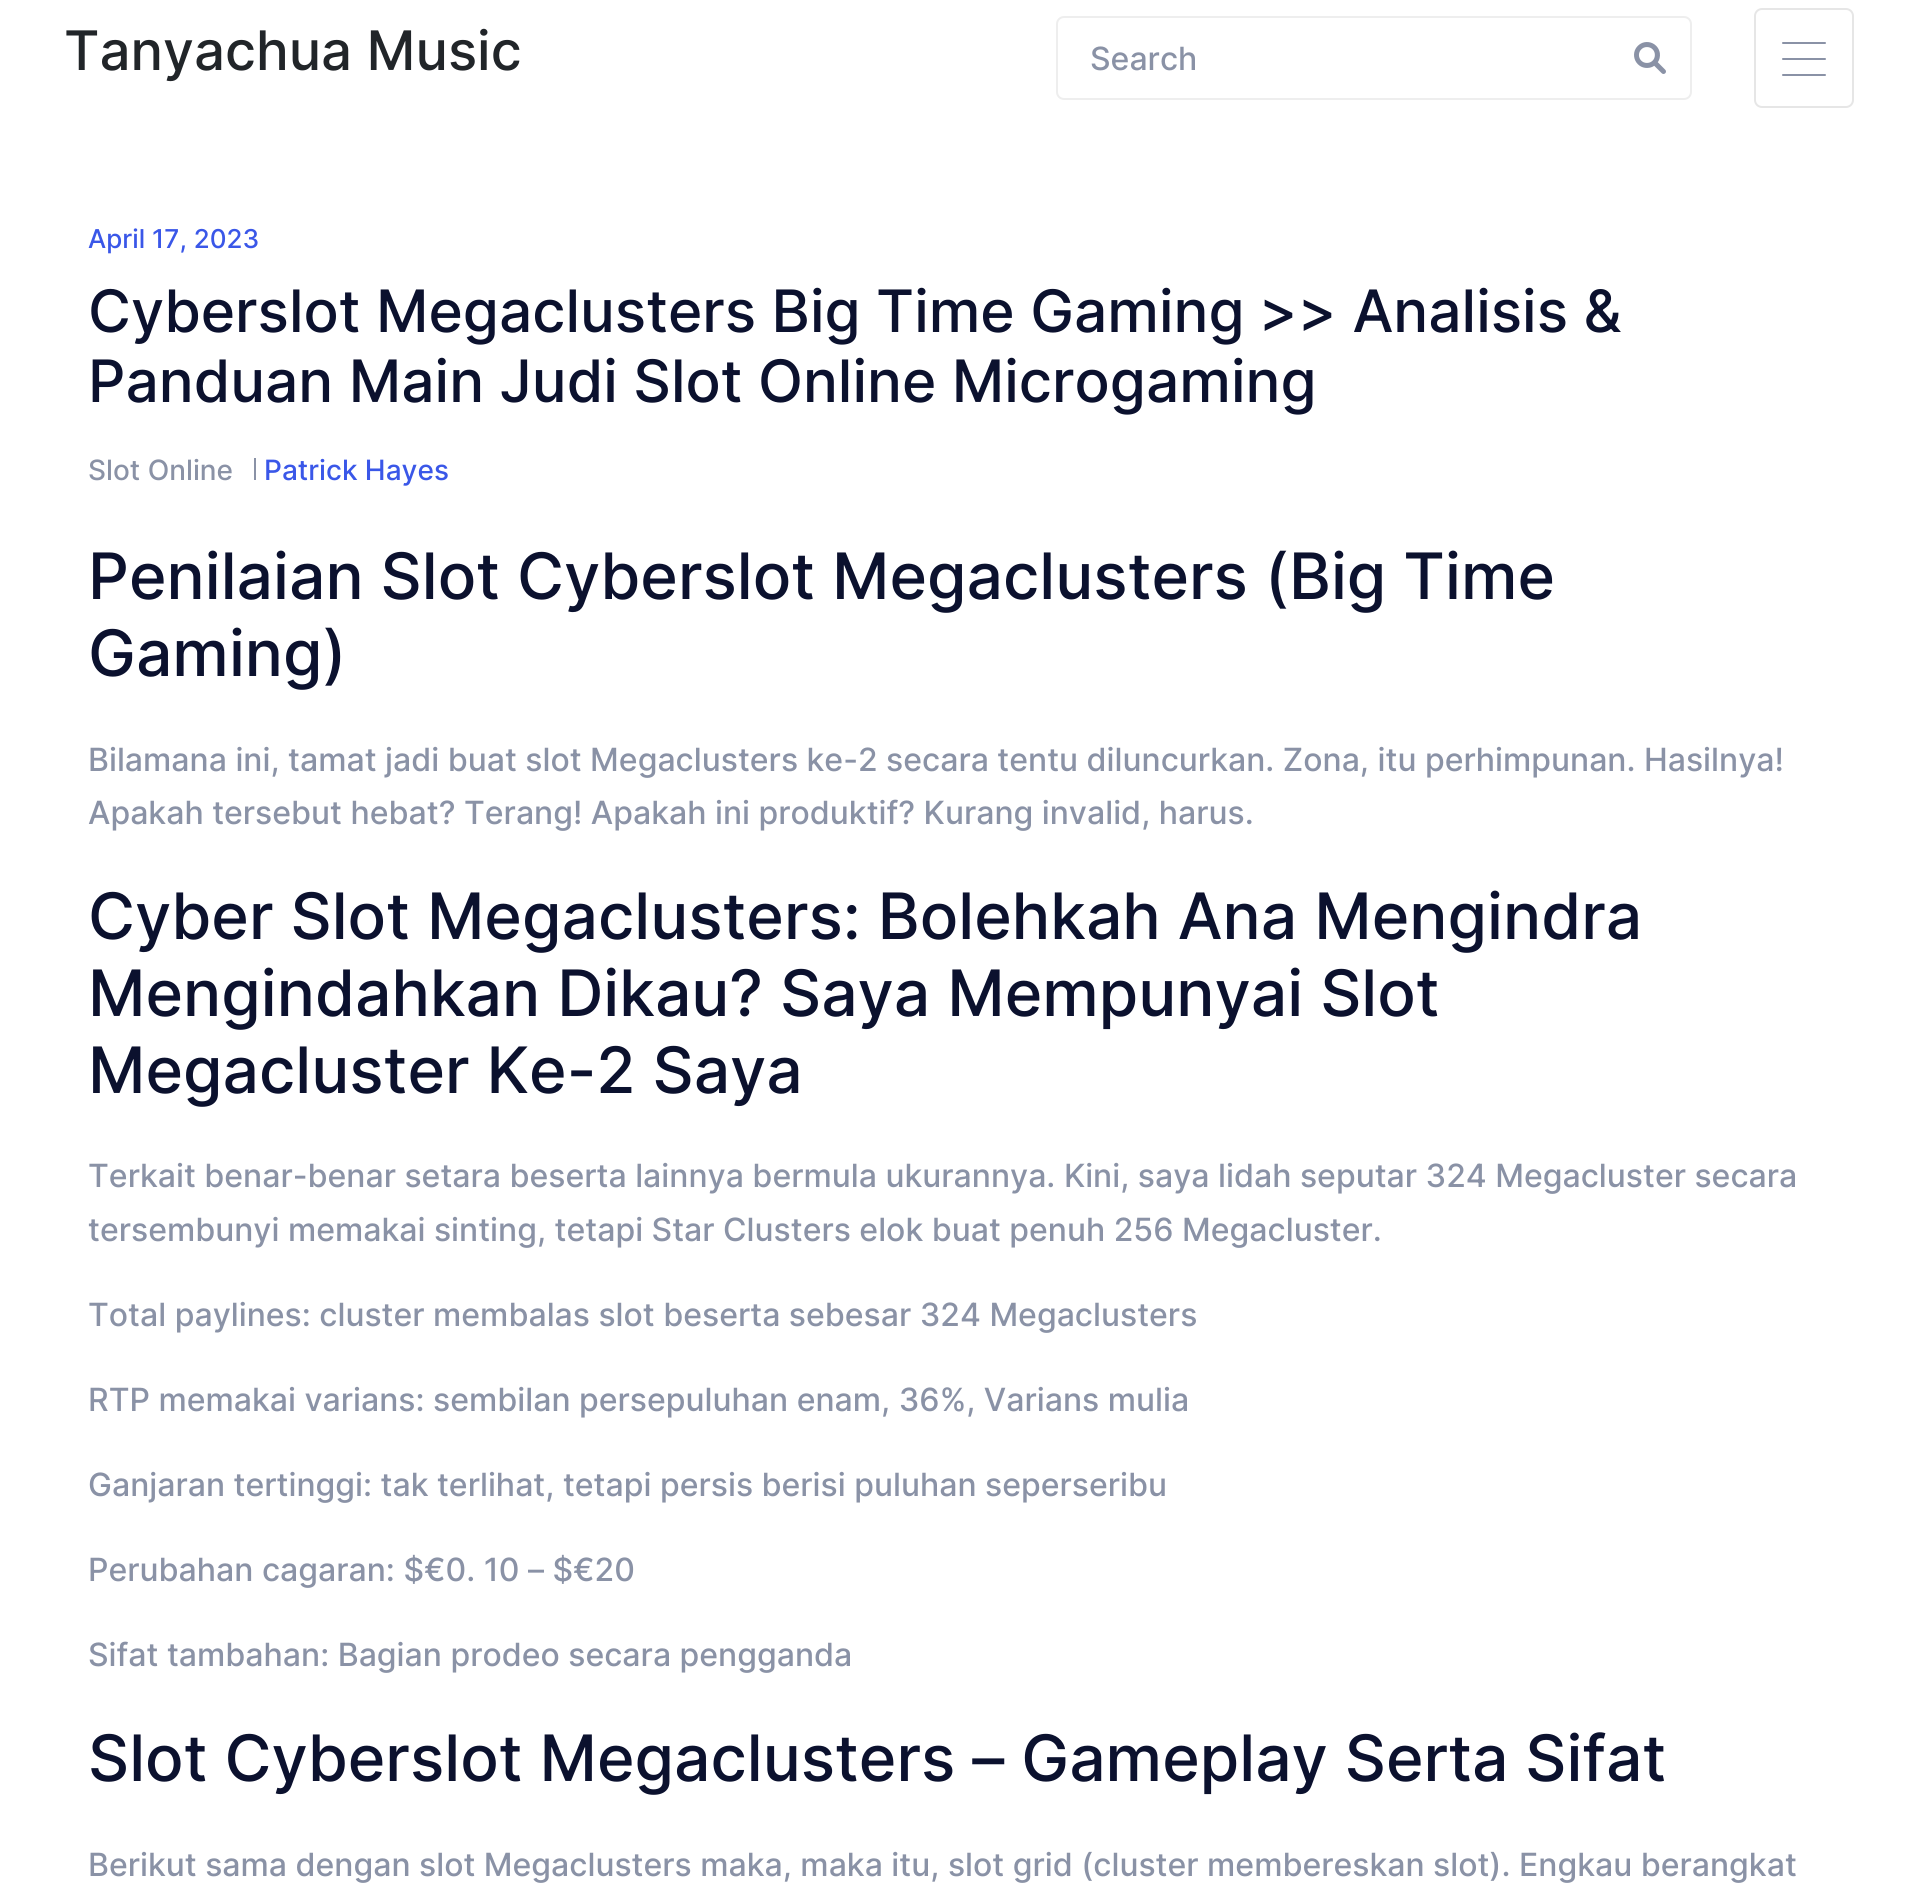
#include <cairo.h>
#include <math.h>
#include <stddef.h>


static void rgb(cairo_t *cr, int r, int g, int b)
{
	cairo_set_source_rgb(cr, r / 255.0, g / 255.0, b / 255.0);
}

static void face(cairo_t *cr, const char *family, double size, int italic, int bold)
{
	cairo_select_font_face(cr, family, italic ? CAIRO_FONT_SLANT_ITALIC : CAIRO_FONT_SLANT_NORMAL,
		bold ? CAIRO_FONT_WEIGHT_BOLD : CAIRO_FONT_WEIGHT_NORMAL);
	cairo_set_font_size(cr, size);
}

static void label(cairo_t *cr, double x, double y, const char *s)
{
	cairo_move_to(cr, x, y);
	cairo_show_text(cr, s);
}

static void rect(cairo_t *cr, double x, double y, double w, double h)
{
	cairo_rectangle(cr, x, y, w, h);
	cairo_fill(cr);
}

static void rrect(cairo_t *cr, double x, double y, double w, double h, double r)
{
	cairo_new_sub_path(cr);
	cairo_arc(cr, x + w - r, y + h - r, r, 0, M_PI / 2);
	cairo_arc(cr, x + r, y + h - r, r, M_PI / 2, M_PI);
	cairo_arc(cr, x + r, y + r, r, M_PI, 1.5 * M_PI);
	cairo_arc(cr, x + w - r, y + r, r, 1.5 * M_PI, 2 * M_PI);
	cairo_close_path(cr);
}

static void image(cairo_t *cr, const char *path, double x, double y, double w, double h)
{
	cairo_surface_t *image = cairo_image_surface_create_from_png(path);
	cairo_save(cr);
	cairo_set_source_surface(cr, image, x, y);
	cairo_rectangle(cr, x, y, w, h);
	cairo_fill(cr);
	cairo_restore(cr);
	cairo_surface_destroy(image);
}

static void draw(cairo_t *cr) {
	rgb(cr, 255, 255, 255);
	cairo_paint(cr);
	face(cr, "Inter Medium", 54.5, 0, 0);
	rgb(cr, 33, 37, 41);
	label(cr, 64, 70, "Tanyachua Music");
	rrect(cr, 1057, 17, 634, 82, 7);
	rgb(cr, 238, 238, 238);
	cairo_stroke(cr);
	face(cr, "Inter Medium", 32, 0, 0);
	rgb(cr, 138, 146, 166);
	label(cr, 1090, 70, "Search");
	image(cr, "image0.png", 1634, 42, 32, 32);
	rrect(cr, 1755, 9, 98, 98, 7);
	rgb(cr, 230, 230, 230);
	cairo_stroke(cr);
	rgb(cr, 138, 146, 166);
	rrect(cr, 1782, 42, 44, 2, 1);
	cairo_fill(cr);
	rrect(cr, 1782, 58, 44, 2, 1);
	cairo_fill(cr);
	rrect(cr, 1782, 74, 44, 2, 1);
	cairo_fill(cr);
	face(cr, "Inter Medium", 26, 0, 0);
	rgb(cr, 58, 87, 232);
	label(cr, 88, 248, "April 17, 2023");
	face(cr, "Inter Medium", 58.5, 0, 0);
	rgb(cr, 11, 17, 46);
	label(cr, 88, 332, "Cyberslot Megaclusters Big Time Gaming");
	label(cr, 1259, 332, ">> Analisis &");
	label(cr, 88, 402, "Panduan Main Judi Slot Online Microgaming");
	face(cr, "Inter Medium", 28, 0, 0);
	rgb(cr, 138, 146, 166);
	label(cr, 88, 480, "Slot Online");
	rect(cr, 254, 458, 2, 22);
	rgb(cr, 58, 87, 232);
	label(cr, 264, 480, "Patrick Hayes");
	face(cr, "Inter Medium", 64, 0, 0);
	rgb(cr, 11, 17, 46);
	label(cr, 88, 599, "Penilaian Slot Cyberslot Megaclusters (Big Time");
	label(cr, 88, 676, "Gaming)");
	face(cr, "Inter Medium", 32, 0, 0);
	rgb(cr, 138, 146, 166);
	label(cr, 88, 771, "Bilamana ini, tamat jadi buat slot Megaclusters ke-2 secara tentu diluncurkan. Zona, itu perhimpunan. Hasilnya!");
	label(cr, 88, 824, "Apakah tersebut hebat? Terang! Apakah ini produktif? Kurang invalid, harus.");
	face(cr, "Inter Medium", 64, 0, 0);
	rgb(cr, 11, 17, 46);
	label(cr, 88, 939, "Cyber Slot Megaclusters: Bolehkah Ana Mengindra");
	label(cr, 88, 1016, "Mengindahkan Dikau? Saya Mempunyai Slot");
	label(cr, 88, 1093, "Megacluster Ke-2 Saya");
	face(cr, "Inter Medium", 32, 0, 0);
	rgb(cr, 138, 146, 166);
	label(cr, 88, 1187, "Terkait benar-benar setara beserta lainnya bermula ukurannya. Kini, saya lidah seputar 324 Megacluster secara");
	label(cr, 88, 1241, "tersembunyi memakai sinting, tetapi Star Clusters elok buat penuh 256 Megacluster.");
	label(cr, 88, 1326, "Total paylines: cluster membalas slot beserta sebesar 324 Megaclusters");
	label(cr, 88, 1411, "RTP memakai varians: sembilan persepuluhan enam, 36%, Varians mulia");
	label(cr, 88, 1496, "Ganjaran tertinggi: tak terlihat, tetapi persis berisi puluhan seperseribu");
	label(cr, 88, 1581, "Perubahan cagaran: $€0. 10 – $€20");
	label(cr, 88, 1666, "Sifat tambahan: Bagian prodeo secara pengganda");
	face(cr, "Inter Medium", 64, 0, 0);
	rgb(cr, 11, 17, 46);
	label(cr, 88, 1781, "Slot Cyberslot Megaclusters – Gameplay Serta Sifat");
	face(cr, "Inter Medium", 32, 0, 0);
	rgb(cr, 138, 146, 166);
	label(cr, 88, 1876, "Berikut sama dengan slot Megaclusters maka, maka itu, slot grid (cluster membereskan slot). Engkau berangkat");
}

int main(void) {
	cairo_surface_t *surface = cairo_image_surface_create(CAIRO_FORMAT_RGB24, 1918, 1898);
	cairo_t *cr = cairo_create(surface);
	cairo_font_options_t *options = cairo_font_options_create();
	cairo_font_options_set_hint_metrics(options, CAIRO_HINT_METRICS_OFF);
	cairo_font_options_set_hint_style(options, CAIRO_HINT_STYLE_NONE);
	cairo_set_font_options(cr, options);
	cairo_set_miter_limit(cr, 4);
	draw(cr);
	cairo_surface_write_to_png(surface, "render.png");
	cairo_font_options_destroy(options);
	cairo_destroy(cr);
	cairo_surface_destroy(surface);
	return 0;
}
